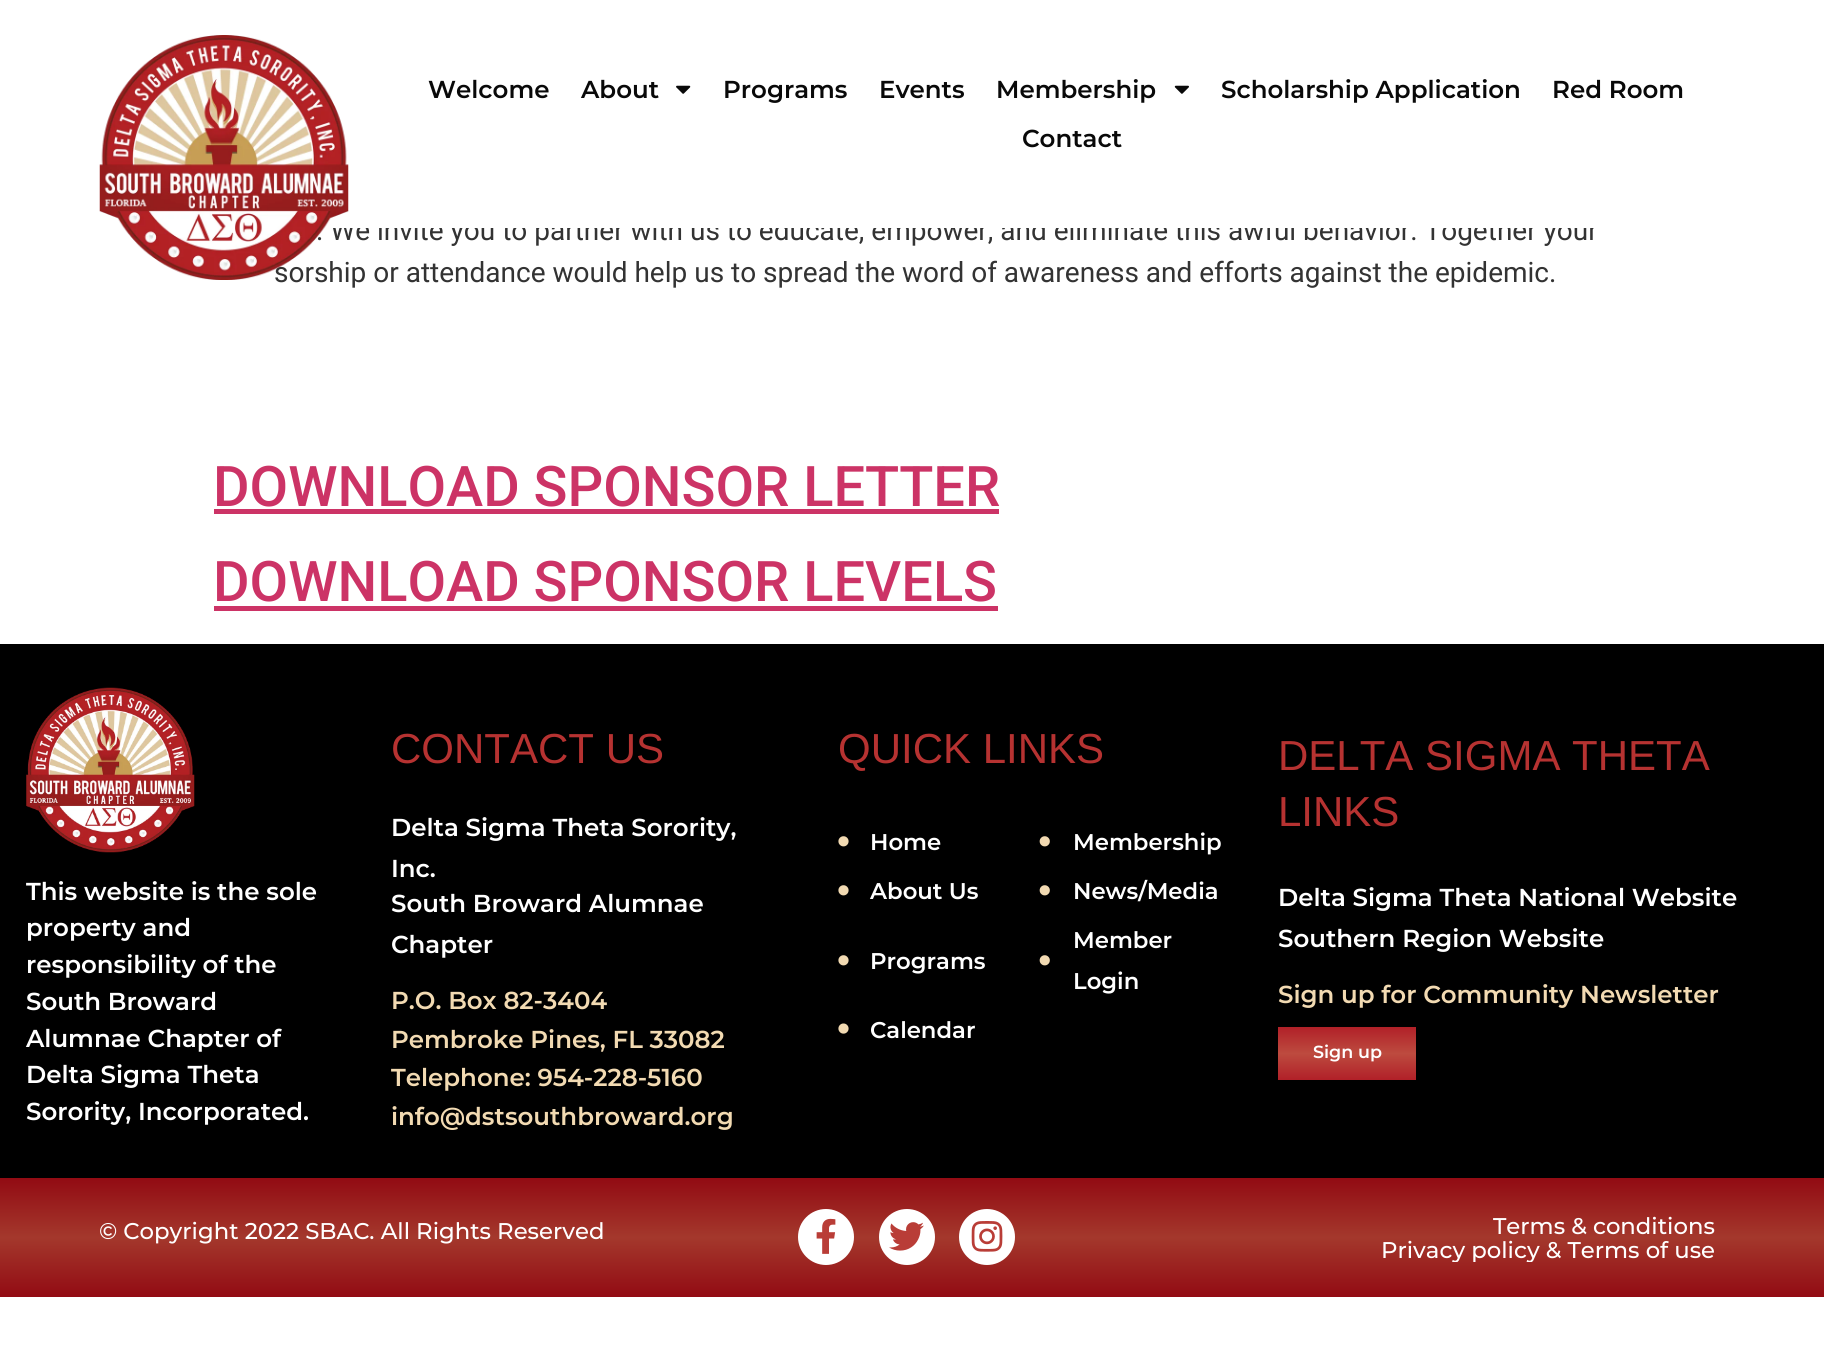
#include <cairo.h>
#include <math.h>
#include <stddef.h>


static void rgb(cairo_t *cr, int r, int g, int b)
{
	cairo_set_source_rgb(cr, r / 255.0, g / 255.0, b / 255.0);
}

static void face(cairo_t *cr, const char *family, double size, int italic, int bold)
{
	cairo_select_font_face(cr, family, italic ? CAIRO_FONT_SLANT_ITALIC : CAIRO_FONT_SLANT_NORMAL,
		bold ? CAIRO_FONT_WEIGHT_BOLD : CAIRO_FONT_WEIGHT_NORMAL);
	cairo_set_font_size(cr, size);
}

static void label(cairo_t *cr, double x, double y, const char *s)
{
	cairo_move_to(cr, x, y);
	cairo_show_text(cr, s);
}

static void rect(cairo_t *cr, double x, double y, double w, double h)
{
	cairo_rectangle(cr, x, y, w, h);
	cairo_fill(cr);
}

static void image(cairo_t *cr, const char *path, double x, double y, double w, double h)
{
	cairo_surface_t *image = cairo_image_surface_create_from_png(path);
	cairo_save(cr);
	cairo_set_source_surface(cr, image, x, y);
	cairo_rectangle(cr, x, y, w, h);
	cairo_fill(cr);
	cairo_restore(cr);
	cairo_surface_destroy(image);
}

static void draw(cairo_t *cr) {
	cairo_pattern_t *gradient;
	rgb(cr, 255, 255, 255);
	cairo_paint(cr);
	face(cr, "Roboto", 28, 0, 0);
	rgb(cr, 51, 51, 51);
	label(cr, 316, 240, ". We invite you to partner with us to educate, empower, and eliminate this awful behavior. Together your");
	rgb(cr, 255, 255, 255);
	rect(cr, 331, 218, 1267, 10);
	rgb(cr, 51, 51, 51);
	label(cr, 274, 282, "sorship or attendance would help us to spread the word of awareness and efforts against the epidemic.");
	image(cr, "image0.png", 99, 35, 250, 245);
	face(cr, "Montserrat SemiBold", 24.5, 0, 0);
	rgb(cr, 9, 9, 9);
	label(cr, 428, 98, "Welcome");
	label(cr, 581, 98, "About");
	image(cr, "image1.png", 676, 85, 15, 9);
	label(cr, 723, 98, "Programs");
	label(cr, 879, 98, "Events");
	label(cr, 996, 98, "Membership");
	image(cr, "image2.png", 1174, 85, 15, 9);
	label(cr, 1221, 98, "Scholarship Application");
	label(cr, 1552, 98, "Red Room");
	label(cr, 1022, 147, "Contact");
	face(cr, "Roboto Medium", 56, 0, 0);
	rgb(cr, 204, 51, 102);
	label(cr, 213, 506, "DOWNLOAD SPONSOR LETTER");
	rect(cr, 214, 509, 785, 5);
	label(cr, 213, 601, "DOWNLOAD SPONSOR LEVELS");
	rect(cr, 214, 606, 784, 5);
	rgb(cr, 0, 0, 0);
	rect(cr, 0, 644, 1824, 534);
	image(cr, "image3.png", 26, 687, 169, 166);
	face(cr, "Montserrat SemiBold", 24.5, 0, 0);
	rgb(cr, 255, 255, 255);
	label(cr, 26, 900, "This website is the sole");
	label(cr, 26, 936, "property and");
	label(cr, 26, 973, "responsibility of the");
	label(cr, 26, 1010, "South Broward");
	label(cr, 26, 1047, "Alumnae Chapter of");
	label(cr, 26, 1083, "Delta Sigma Theta");
	label(cr, 26, 1120, "Sorority, Incorporated.");
	face(cr, "Liberation Sans", 42, 0, 0);
	rgb(cr, 182, 50, 49);
	label(cr, 391, 763, "CONTACT US");
	face(cr, "Montserrat SemiBold", 24.5, 0, 0);
	rgb(cr, 255, 255, 255);
	label(cr, 391, 836, "Delta Sigma Theta Sorority,");
	label(cr, 391, 877, "Inc.");
	label(cr, 391, 912, "South Broward Alumnae");
	label(cr, 391, 953, "Chapter");
	rgb(cr, 242, 218, 178);
	label(cr, 391, 1009, "P.O. Box 82-3404");
	label(cr, 391, 1048, "Pembroke Pines, FL 33082");
	label(cr, 391, 1086, "Telephone: 954-228-5160");
	label(cr, 391, 1125, "info@dstsouthbroward.org");
	face(cr, "Liberation Sans", 42, 0, 0);
	rgb(cr, 182, 50, 49);
	label(cr, 838, 763, "QUICK LINKS");
	image(cr, "image4.png", 838, 836, 11, 11);
	face(cr, "Montserrat SemiBold", 22.75, 0, 0);
	rgb(cr, 255, 255, 255);
	label(cr, 870, 850, "Home");
	image(cr, "image5.png", 1039, 836, 11, 11);
	label(cr, 1073, 850, "Membership");
	image(cr, "image4.png", 838, 885, 11, 11);
	label(cr, 870, 899, "About Us");
	image(cr, "image5.png", 1039, 885, 11, 11);
	label(cr, 1073, 899, "News/Media");
	image(cr, "image4.png", 838, 955, 11, 11);
	label(cr, 870, 969, "Programs");
	image(cr, "image5.png", 1039, 955, 11, 11);
	label(cr, 1073, 948, "Member");
	label(cr, 1073, 989, "Login");
	image(cr, "image6.png", 838, 1023, 11, 11);
	label(cr, 870, 1038, "Calendar");
	face(cr, "Liberation Sans", 42, 0, 0);
	rgb(cr, 182, 50, 49);
	label(cr, 1278, 770, "DELTA SIGMA THETA");
	label(cr, 1278, 826, "LINKS");
	face(cr, "Montserrat SemiBold", 24.5, 0, 0);
	rgb(cr, 255, 255, 255);
	label(cr, 1278, 906, "Delta Sigma Theta National Website");
	label(cr, 1278, 947, "Southern Region Website");
	rgb(cr, 242, 218, 178);
	label(cr, 1278, 1003, "Sign up for Community Newsletter");
	gradient = cairo_pattern_create_linear(1347, 1080, 1347, 1027);
	cairo_pattern_add_color_stop_rgba(gradient, 0, 0.694, 0.125, 0.157, 1);
	cairo_pattern_add_color_stop_rgba(gradient, 0.5, 0.741, 0.294, 0.247, 1);
	cairo_pattern_add_color_stop_rgba(gradient, 1, 0.694, 0.125, 0.157, 1);
	cairo_set_source(cr, gradient);
	cairo_pattern_destroy(gradient);
	rect(cr, 1278, 1027, 138, 53);
	face(cr, "Montserrat SemiBold", 17.5, 0, 0);
	rgb(cr, 255, 255, 255);
	label(cr, 1313, 1058, "Sign up");
	gradient = cairo_pattern_create_linear(913, 1297, 913, 1178);
	cairo_pattern_add_color_stop_rgba(gradient, 0, 0.573, 0.043, 0.075, 1);
	cairo_pattern_add_color_stop_rgba(gradient, 0.5, 0.643, 0.22, 0.173, 1);
	cairo_pattern_add_color_stop_rgba(gradient, 1, 0.573, 0.043, 0.075, 1);
	cairo_set_source(cr, gradient);
	cairo_pattern_destroy(gradient);
	rect(cr, 0, 1178, 1824, 119);
	face(cr, "Montserrat Medium", 22.75, 0, 0);
	rgb(cr, 255, 255, 255);
	label(cr, 99, 1239, "© Copyright 2022 SBAC. All Rights Reserved");
	cairo_new_path(cr);
	cairo_arc(cr, 826, 1237, 28, 0, 2 * M_PI);
	cairo_fill(cr);
	image(cr, "image7.png", 816, 1218, 20, 36);
	cairo_arc(cr, 907, 1237, 28, 0, 2 * M_PI);
	cairo_fill(cr);
	image(cr, "image8.png", 889, 1222, 35, 29);
	cairo_arc(cr, 987, 1237, 28, 0, 2 * M_PI);
	cairo_fill(cr);
	image(cr, "image9.png", 971, 1221, 32, 31);
	label(cr, 1493, 1234, "Terms & conditions");
	cairo_save(cr);
	cairo_rectangle(cr, 1180, 1213, 535, 49);
	cairo_clip(cr);
	label(cr, 1381, 1258, "Privacy policy & Terms of use");
	cairo_restore(cr);
}

int main(void) {
	cairo_surface_t *surface = cairo_image_surface_create(CAIRO_FORMAT_RGB24, 1824, 1368);
	cairo_t *cr = cairo_create(surface);
	cairo_font_options_t *options = cairo_font_options_create();
	cairo_font_options_set_hint_metrics(options, CAIRO_HINT_METRICS_OFF);
	cairo_font_options_set_hint_style(options, CAIRO_HINT_STYLE_NONE);
	cairo_set_font_options(cr, options);
	cairo_set_miter_limit(cr, 4);
	draw(cr);
	cairo_surface_write_to_png(surface, "render.png");
	cairo_font_options_destroy(options);
	cairo_destroy(cr);
	cairo_surface_destroy(surface);
	return 0;
}
